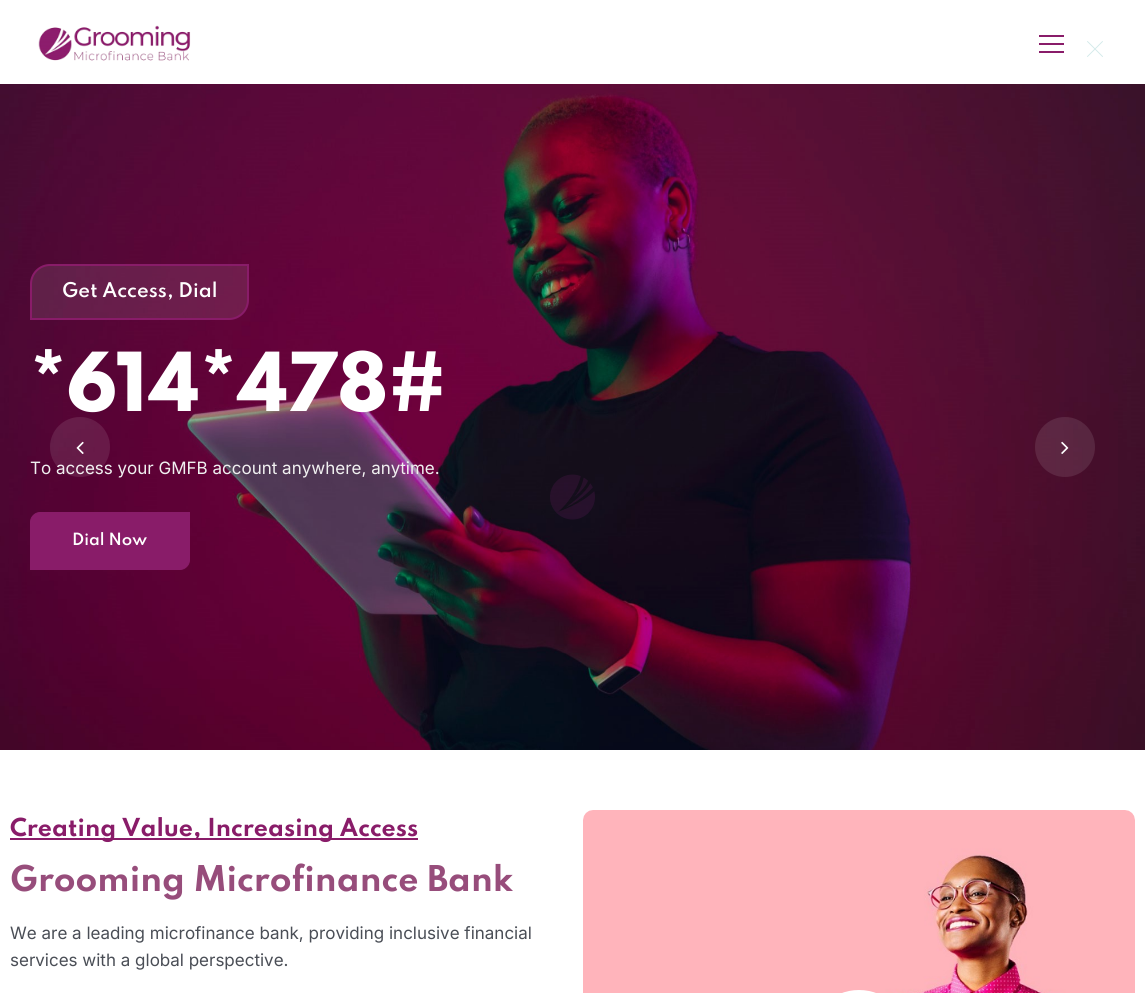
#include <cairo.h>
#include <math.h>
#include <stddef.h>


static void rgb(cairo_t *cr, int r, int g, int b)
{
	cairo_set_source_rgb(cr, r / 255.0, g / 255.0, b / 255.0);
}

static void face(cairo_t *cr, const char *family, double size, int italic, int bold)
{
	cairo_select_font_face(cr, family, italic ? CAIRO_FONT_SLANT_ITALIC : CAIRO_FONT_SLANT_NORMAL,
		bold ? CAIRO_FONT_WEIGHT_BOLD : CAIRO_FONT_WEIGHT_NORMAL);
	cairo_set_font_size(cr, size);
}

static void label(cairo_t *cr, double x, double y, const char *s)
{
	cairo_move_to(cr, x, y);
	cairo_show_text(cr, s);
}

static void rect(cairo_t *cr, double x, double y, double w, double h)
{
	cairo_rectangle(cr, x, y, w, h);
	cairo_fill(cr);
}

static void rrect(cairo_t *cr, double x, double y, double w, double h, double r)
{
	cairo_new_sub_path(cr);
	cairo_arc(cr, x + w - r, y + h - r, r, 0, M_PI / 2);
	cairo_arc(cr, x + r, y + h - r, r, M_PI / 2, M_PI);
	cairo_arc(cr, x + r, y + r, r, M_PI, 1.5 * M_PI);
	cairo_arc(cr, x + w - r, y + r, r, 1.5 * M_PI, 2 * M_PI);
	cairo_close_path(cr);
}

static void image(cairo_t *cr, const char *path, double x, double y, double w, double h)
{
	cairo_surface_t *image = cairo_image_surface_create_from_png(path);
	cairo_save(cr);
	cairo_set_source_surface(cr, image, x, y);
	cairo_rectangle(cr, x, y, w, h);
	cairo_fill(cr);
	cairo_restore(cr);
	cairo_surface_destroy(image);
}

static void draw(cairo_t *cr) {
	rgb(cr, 255, 255, 255);
	cairo_paint(cr);
	image(cr, "image0.png", 38, 25, 153, 36);
	rgb(cr, 137, 28, 105);
	rect(cr, 1039, 35, 25, 2);
	rect(cr, 1039, 43, 25, 2);
	rect(cr, 1039, 51, 25, 2);
	image(cr, "image1.png", 0, 84, 1145, 666);
	cairo_set_source_rgba(cr, 1, 1, 1, 0.1);
	cairo_new_path(cr);
	cairo_move_to(cr, 50, 265);
	cairo_line_to(cr, 248, 265);
	cairo_line_to(cr, 248, 300);
	cairo_curve_to(cr, 248, 310.5, 239.5, 319, 229, 319);
	cairo_line_to(cr, 31, 319);
	cairo_line_to(cr, 31, 284);
	cairo_curve_to(cr, 31, 273.5, 39.5, 265, 50, 265);
	cairo_close_path(cr);
	cairo_fill_preserve(cr);
	rgb(cr, 137, 28, 105);
	cairo_stroke(cr);
	face(cr, "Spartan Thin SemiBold", 18, 0, 0);
	rgb(cr, 255, 255, 255);
	label(cr, 62, 297, "Get Access, Dial");
	face(cr, "Spartan Thin ExtraBold", 72, 0, 0);
	label(cr, 30, 411, "*614*478#");
	face(cr, "Inter", 17, 0, 0);
	rgb(cr, 240, 240, 240);
	label(cr, 30, 474, "To access your GMFB account anywhere, anytime.");
	rgb(cr, 137, 28, 105);
	cairo_new_path(cr);
	cairo_move_to(cr, 40, 512.5);
	cairo_line_to(cr, 189.5, 512.5);
	cairo_line_to(cr, 189.5, 560);
	cairo_curve_to(cr, 189.5, 565, 185, 569.5, 180, 569.5);
	cairo_line_to(cr, 30.5, 569.5);
	cairo_line_to(cr, 30.5, 522);
	cairo_curve_to(cr, 30.5, 517, 35, 512.5, 40, 512.5);
	cairo_close_path(cr);
	cairo_fill_preserve(cr);
	cairo_set_line_width(cr, 1);
	cairo_stroke(cr);
	face(cr, "Spartan Thin SemiBold", 15, 0, 0);
	rgb(cr, 255, 255, 255);
	label(cr, 72, 545, "Dial Now");
	cairo_set_source_rgba(cr, 1, 1, 1, 0.1);
	cairo_new_path(cr);
	cairo_arc(cr, 80, 447, 30, 0, 2 * M_PI);
	cairo_fill(cr);
	image(cr, "image2.png", 76, 441, 8, 13);
	cairo_arc(cr, 1065, 447, 30, 0, 2 * M_PI);
	cairo_fill(cr);
	image(cr, "image3.png", 1061, 441, 8, 13);
	rgb(cr, 137, 28, 105);
	rect(cr, 10, 838, 408, 2);
	face(cr, "Spartan Thin", 22, 0, 1);
	label(cr, 10, 836, "Creating Value, Increasing Access");
	face(cr, "Spartan Thin", 31.5, 0, 1);
	rgb(cr, 151, 77, 123);
	label(cr, 10, 891, "Grooming Microfinance Bank");
	face(cr, "Inter", 17, 0, 0);
	rgb(cr, 74, 78, 86);
	label(cr, 10, 939, "We are a leading microfinance bank, providing inclusive financial");
	label(cr, 10, 966, "services with a global perspective.");
	image(cr, "image4.png", 583, 810, 552, 183);
	rgb(cr, 255, 255, 255);
	rrect(cr, 809, 990, 100, 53, 50);
	cairo_fill(cr);
	image(cr, "image5.png", 550, 474, 45, 46);
	image(cr, "image6.png", 1087, 41, 16, 16);
}

int main(void) {
	cairo_surface_t *surface = cairo_image_surface_create(CAIRO_FORMAT_RGB24, 1145, 993);
	cairo_t *cr = cairo_create(surface);
	cairo_font_options_t *options = cairo_font_options_create();
	cairo_font_options_set_hint_metrics(options, CAIRO_HINT_METRICS_OFF);
	cairo_font_options_set_hint_style(options, CAIRO_HINT_STYLE_NONE);
	cairo_set_font_options(cr, options);
	cairo_set_miter_limit(cr, 4);
	draw(cr);
	cairo_surface_write_to_png(surface, "render.png");
	cairo_font_options_destroy(options);
	cairo_destroy(cr);
	cairo_surface_destroy(surface);
	return 0;
}
